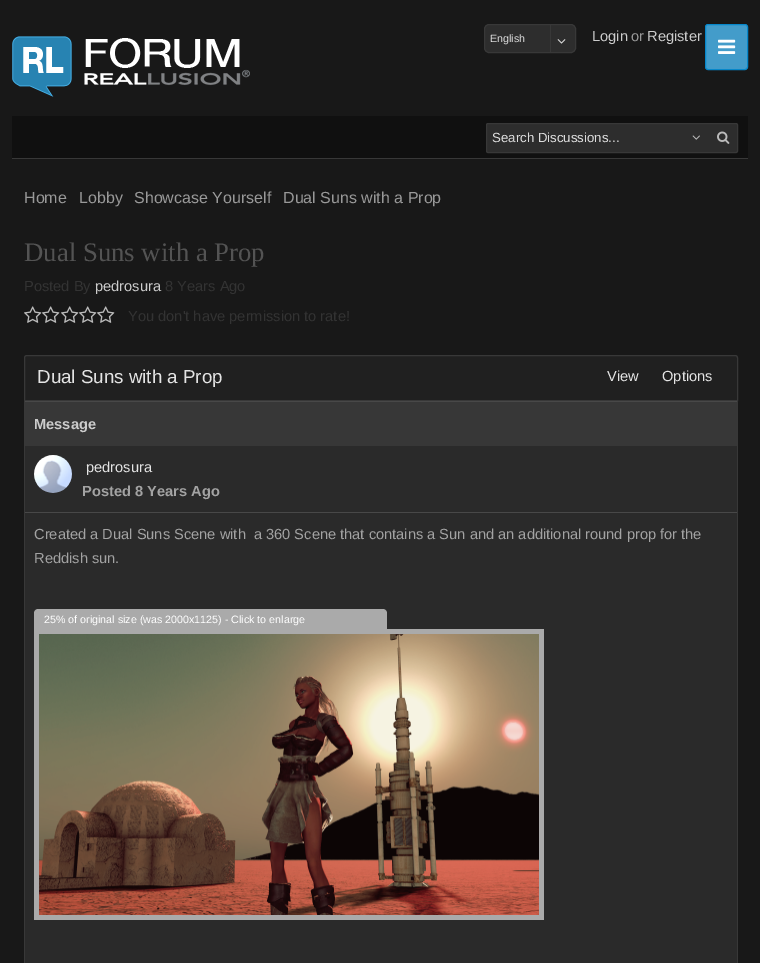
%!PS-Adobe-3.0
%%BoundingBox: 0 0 760 963
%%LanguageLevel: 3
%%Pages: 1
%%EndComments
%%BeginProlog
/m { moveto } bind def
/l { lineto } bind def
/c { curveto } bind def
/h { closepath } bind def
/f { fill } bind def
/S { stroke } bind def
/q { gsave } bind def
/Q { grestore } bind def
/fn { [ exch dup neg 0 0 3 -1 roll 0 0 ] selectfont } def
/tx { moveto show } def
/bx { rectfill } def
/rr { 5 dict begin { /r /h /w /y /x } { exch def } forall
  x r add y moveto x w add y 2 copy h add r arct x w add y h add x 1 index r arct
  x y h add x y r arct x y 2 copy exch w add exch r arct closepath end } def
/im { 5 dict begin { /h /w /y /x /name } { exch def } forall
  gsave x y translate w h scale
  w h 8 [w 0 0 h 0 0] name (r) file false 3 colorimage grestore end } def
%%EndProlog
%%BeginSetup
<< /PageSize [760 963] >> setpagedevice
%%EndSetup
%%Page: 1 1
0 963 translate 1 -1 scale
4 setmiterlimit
0.094 setgray
0 0 760 963 bx
(image0.raw) 12 36 238 61 im
0.176 setgray
484.5 24.5 91 28 4.5 rr q f Q
0.22 setgray
S
/LiberationSans-Regular 10.7 fn
0.867 setgray
(English) 490 42 tx
0.22 setgray
550 25 1 27 bx
(image1.raw) 557 39 9 5 im
/LiberationSans-Regular 14.65 fn
0.8 setgray
(Login) 592 41 tx
0.6 setgray
(or) 631 41 tx
0.8 setgray
(Register) 647 41 tx
0.263 0.612 0.792 setrgbcolor
705.5 24.5 42 45 2.5 rr q f Q
0.024 0.529 0.792 setrgbcolor
S
(image2.raw) 718 39 18 15 im
0.063 setgray
12 116 736 42 bx
0.22 setgray
12 158 736 1 bx
0.176 setgray
486.5 123.5 251 29 1.5 rr q f Q
0.22 setgray
S
/LiberationSans-Regular 13.25 fn
0.867 setgray
(Search Discussions...) 492 142 tx
(image3.raw) 692 135 8 5 im
(image4.raw) 717 131 13 13 im
/LiberationSans-Regular 16 fn
0.6 setgray
(Home) 24 203 tx
(Lobby) 79 203 tx
(Showcase Yourself) 134 203 tx
(Dual Suns with a Prop) 283 203 tx
/LiberationSerif-Regular 26.75 fn
0.325 setgray
(Dual Suns with a Prop) 24 261 tx
/LiberationSans-Regular 14.65 fn
0.2 setgray
(Posted By) 24 291 tx
0.8 setgray
(pedrosura) 95 291 tx
0.2 setgray
(8 Years Ago) 165 291 tx
(image5.raw) 24 306 18 17 im
(image5.raw) 42 306 18 17 im
(image5.raw) 61 306 18 17 im
(image5.raw) 79 306 18 17 im
(image5.raw) 97 306 18 17 im
(You don't have permission to rate!) 128 321 tx
0.125 setgray
27 355.5 m 735 355.5 l 736.5 355.5 737.5 356.5 737.5 358 c 737.5 400.5 l 24.5 400.5 l 24.5 358 l 24.5 356.5 25.5 355.5 27 355.5 c h q f Q
0.22 setgray
S
/LiberationSans-Regular 18.75 fn
0.894 setgray
(Dual Suns with a Prop) 37 383 tx
/LiberationSans-Regular 14.65 fn
(View) 607 381 tx
(Options) 662 381 tx
0.22 setgray
737 401 1 562 bx
24 401 1 562 bx
0.216 setgray
25 402 712 44 bx
0.282 setgray
25 401 712 1 bx
/LiberationSans-Bold 14.65 fn
0.8 setgray
(Message) 34 429 tx
0.165 setgray
25 446 712 66 bx
(image6.raw) 34 455 38 38 im
/LiberationSans-Regular 14.65 fn
0.894 setgray
(pedrosura) 86 472 tx
/LiberationSans-Bold 14.65 fn
0.639 setgray
(Posted 8 Years Ago) 82 496 tx
0.165 setgray
25 513 712 450 bx
0.282 setgray
25 512 712 1 bx
/LiberationSans-Regular 14.65 fn
0.639 setgray
(Created a Dual Suns Scene with  a 360 Scene that contains a Sun and an additional round prop for the) 34 539 tx
(Reddish sun.) 34 563 tx
0.667 setgray
38 609 m 383 609 l 385 609 387 611 387 613 c 387 629 l 34 629 l 34 613 l 34 611 36 609 38 609 c h f
/LiberationSans-Regular 10.7 fn
1 setgray
(25% of original size \(was 2000x1125\) - Click to enlarge) 44 623 tx
0.667 setgray
34 629 510 291 bx
(image7.raw) 39 634 500 281 im
showpage
%%EOF
